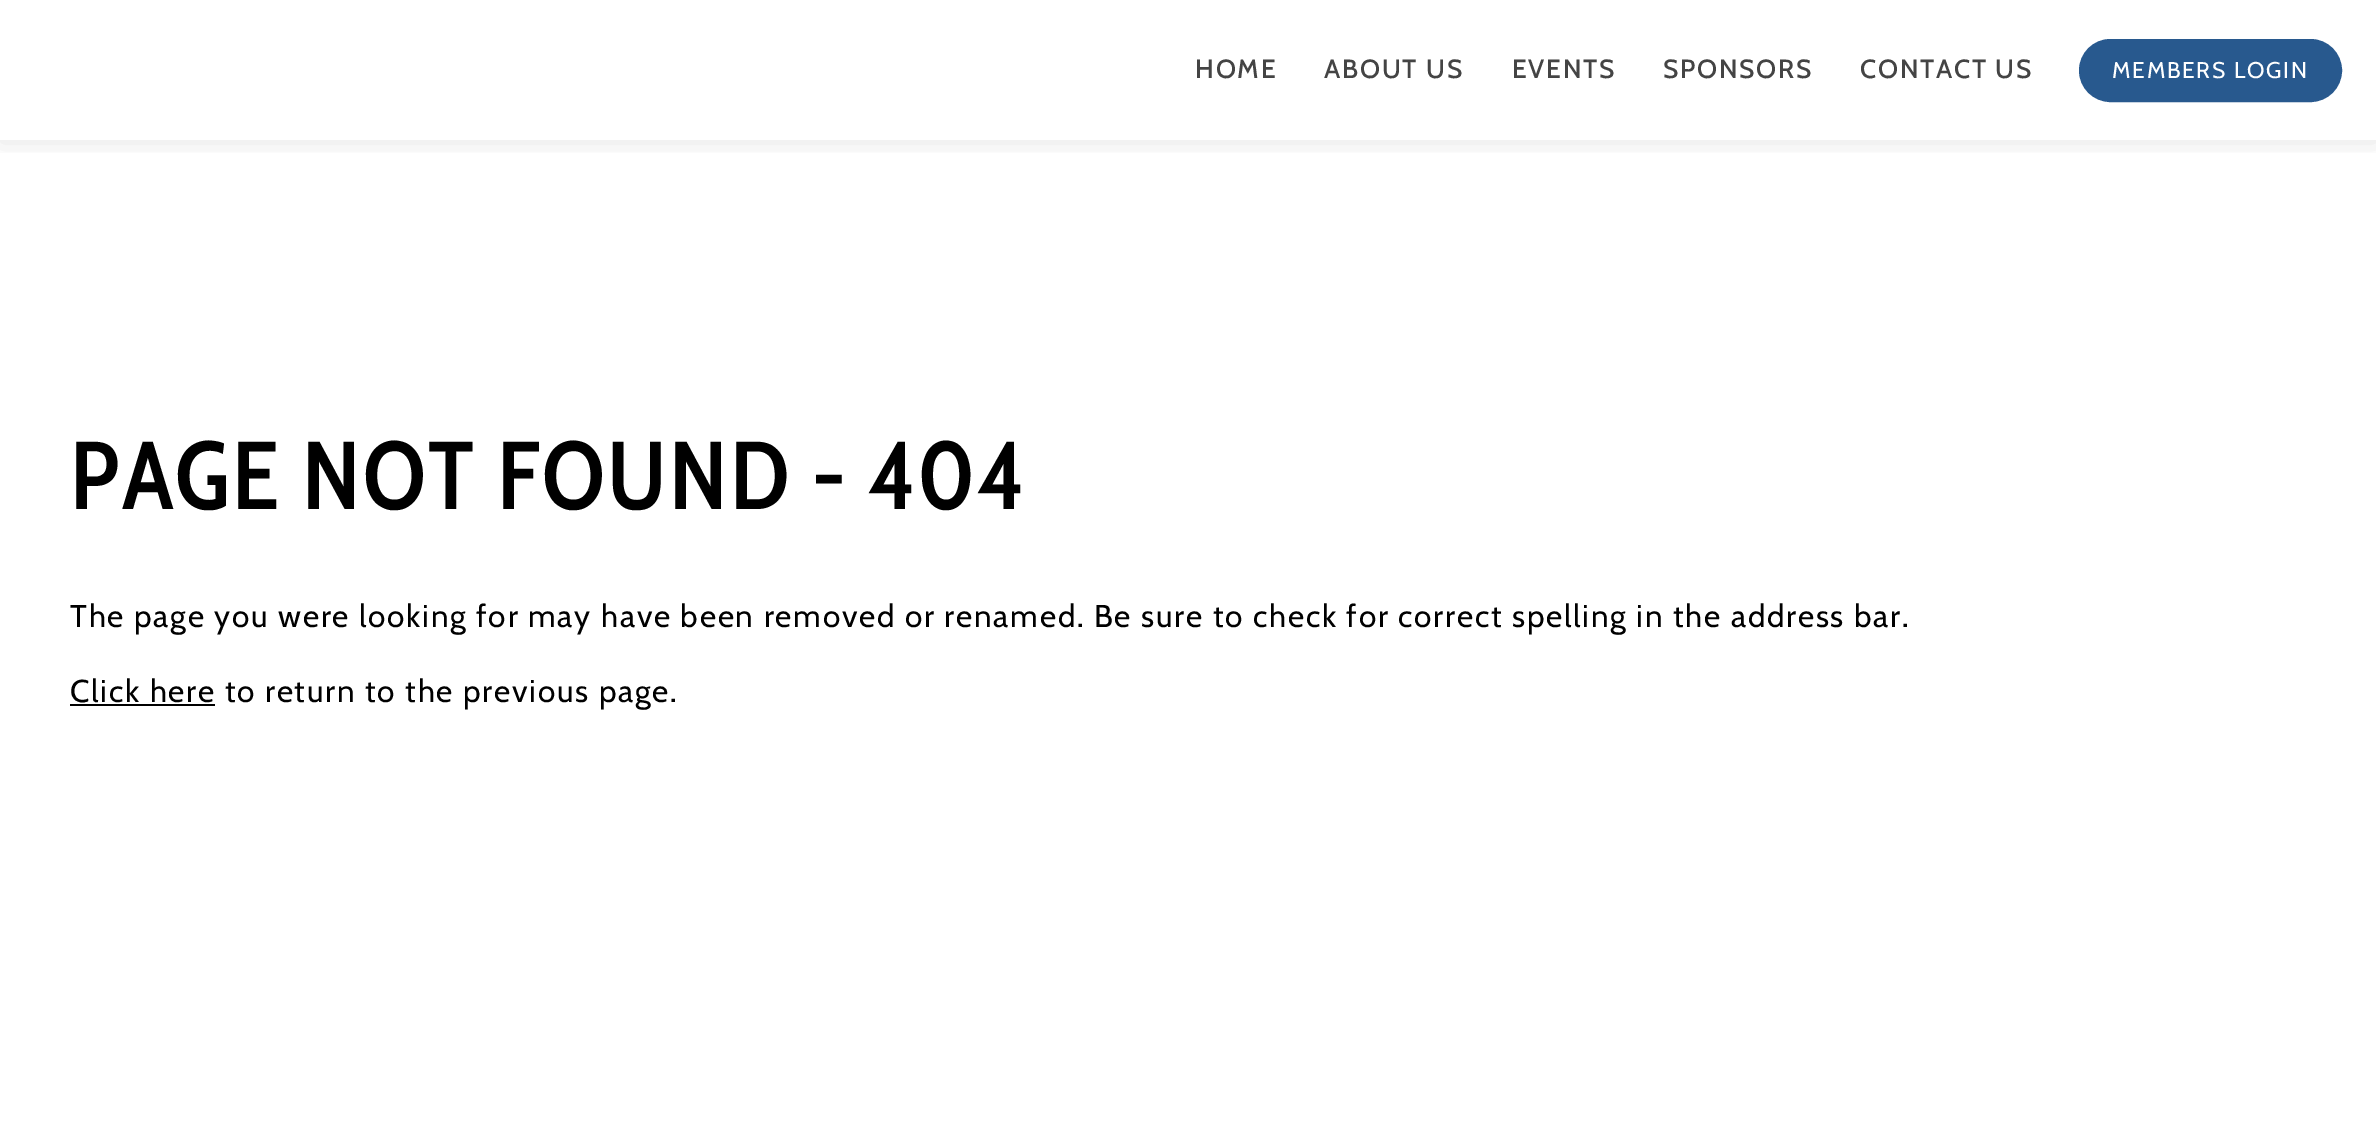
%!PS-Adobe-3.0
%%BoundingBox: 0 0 2376 1135
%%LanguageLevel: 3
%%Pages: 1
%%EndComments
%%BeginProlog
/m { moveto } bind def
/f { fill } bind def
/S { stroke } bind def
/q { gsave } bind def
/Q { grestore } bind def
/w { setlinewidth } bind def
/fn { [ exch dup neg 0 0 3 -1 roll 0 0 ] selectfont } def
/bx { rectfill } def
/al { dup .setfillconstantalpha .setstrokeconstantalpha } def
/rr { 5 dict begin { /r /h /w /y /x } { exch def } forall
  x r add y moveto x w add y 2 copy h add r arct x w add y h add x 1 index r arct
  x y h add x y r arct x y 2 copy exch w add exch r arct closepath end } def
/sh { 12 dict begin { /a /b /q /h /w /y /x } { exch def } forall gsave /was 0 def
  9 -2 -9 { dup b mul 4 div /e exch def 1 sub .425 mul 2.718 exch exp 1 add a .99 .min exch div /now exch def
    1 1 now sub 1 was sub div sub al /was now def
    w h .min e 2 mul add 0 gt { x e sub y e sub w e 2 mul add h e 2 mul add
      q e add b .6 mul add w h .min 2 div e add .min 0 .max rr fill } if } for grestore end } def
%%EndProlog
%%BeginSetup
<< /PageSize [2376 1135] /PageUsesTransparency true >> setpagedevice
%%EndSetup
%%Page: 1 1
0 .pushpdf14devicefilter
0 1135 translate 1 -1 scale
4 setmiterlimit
1 setgray
0 0 2376 1135 bx
q
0 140 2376 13 rectclip
0 setgray
0 2 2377 140 0 13 0.1 sh
Q
/Cabin-Medium 26.25 fn
0.267 setgray
1195 78 m 1.75 0 (HOME) ashow
1324 78 m 1.75 0 (ABOUT US) ashow
1512 78 m 1.75 0 (EVENTS) ashow
1663 78 m 1.75 0 (SPONSORS) ashow
1860 78 m 1.75 0 (CONTACT US) ashow
0.157 0.349 0.557 setrgbcolor
2080 40 261 61 30.5 rr q f Q
2 w
S
/Cabin-Regular 22.75 fn
1 setgray
2112 78 m 1.75 0 (MEMBERS LOGIN) ashow
/CabinCondensed-SemiBold 96.25 fn
0 setgray
70 509 m 2.1 0 (PAGE NOT FOUND - 404) ashow
/Cabin-Regular 31.5 fn
70 627 m 1.75 0 (The page you were looking for may have been removed or renamed. Be sure to check for correct spelling in the address bar.) ashow
70 704 145 2 bx
70 702 m 1.75 0 (Click here to return to the previous page.) ashow
.poppdf14devicefilter showpage
%%EOF
